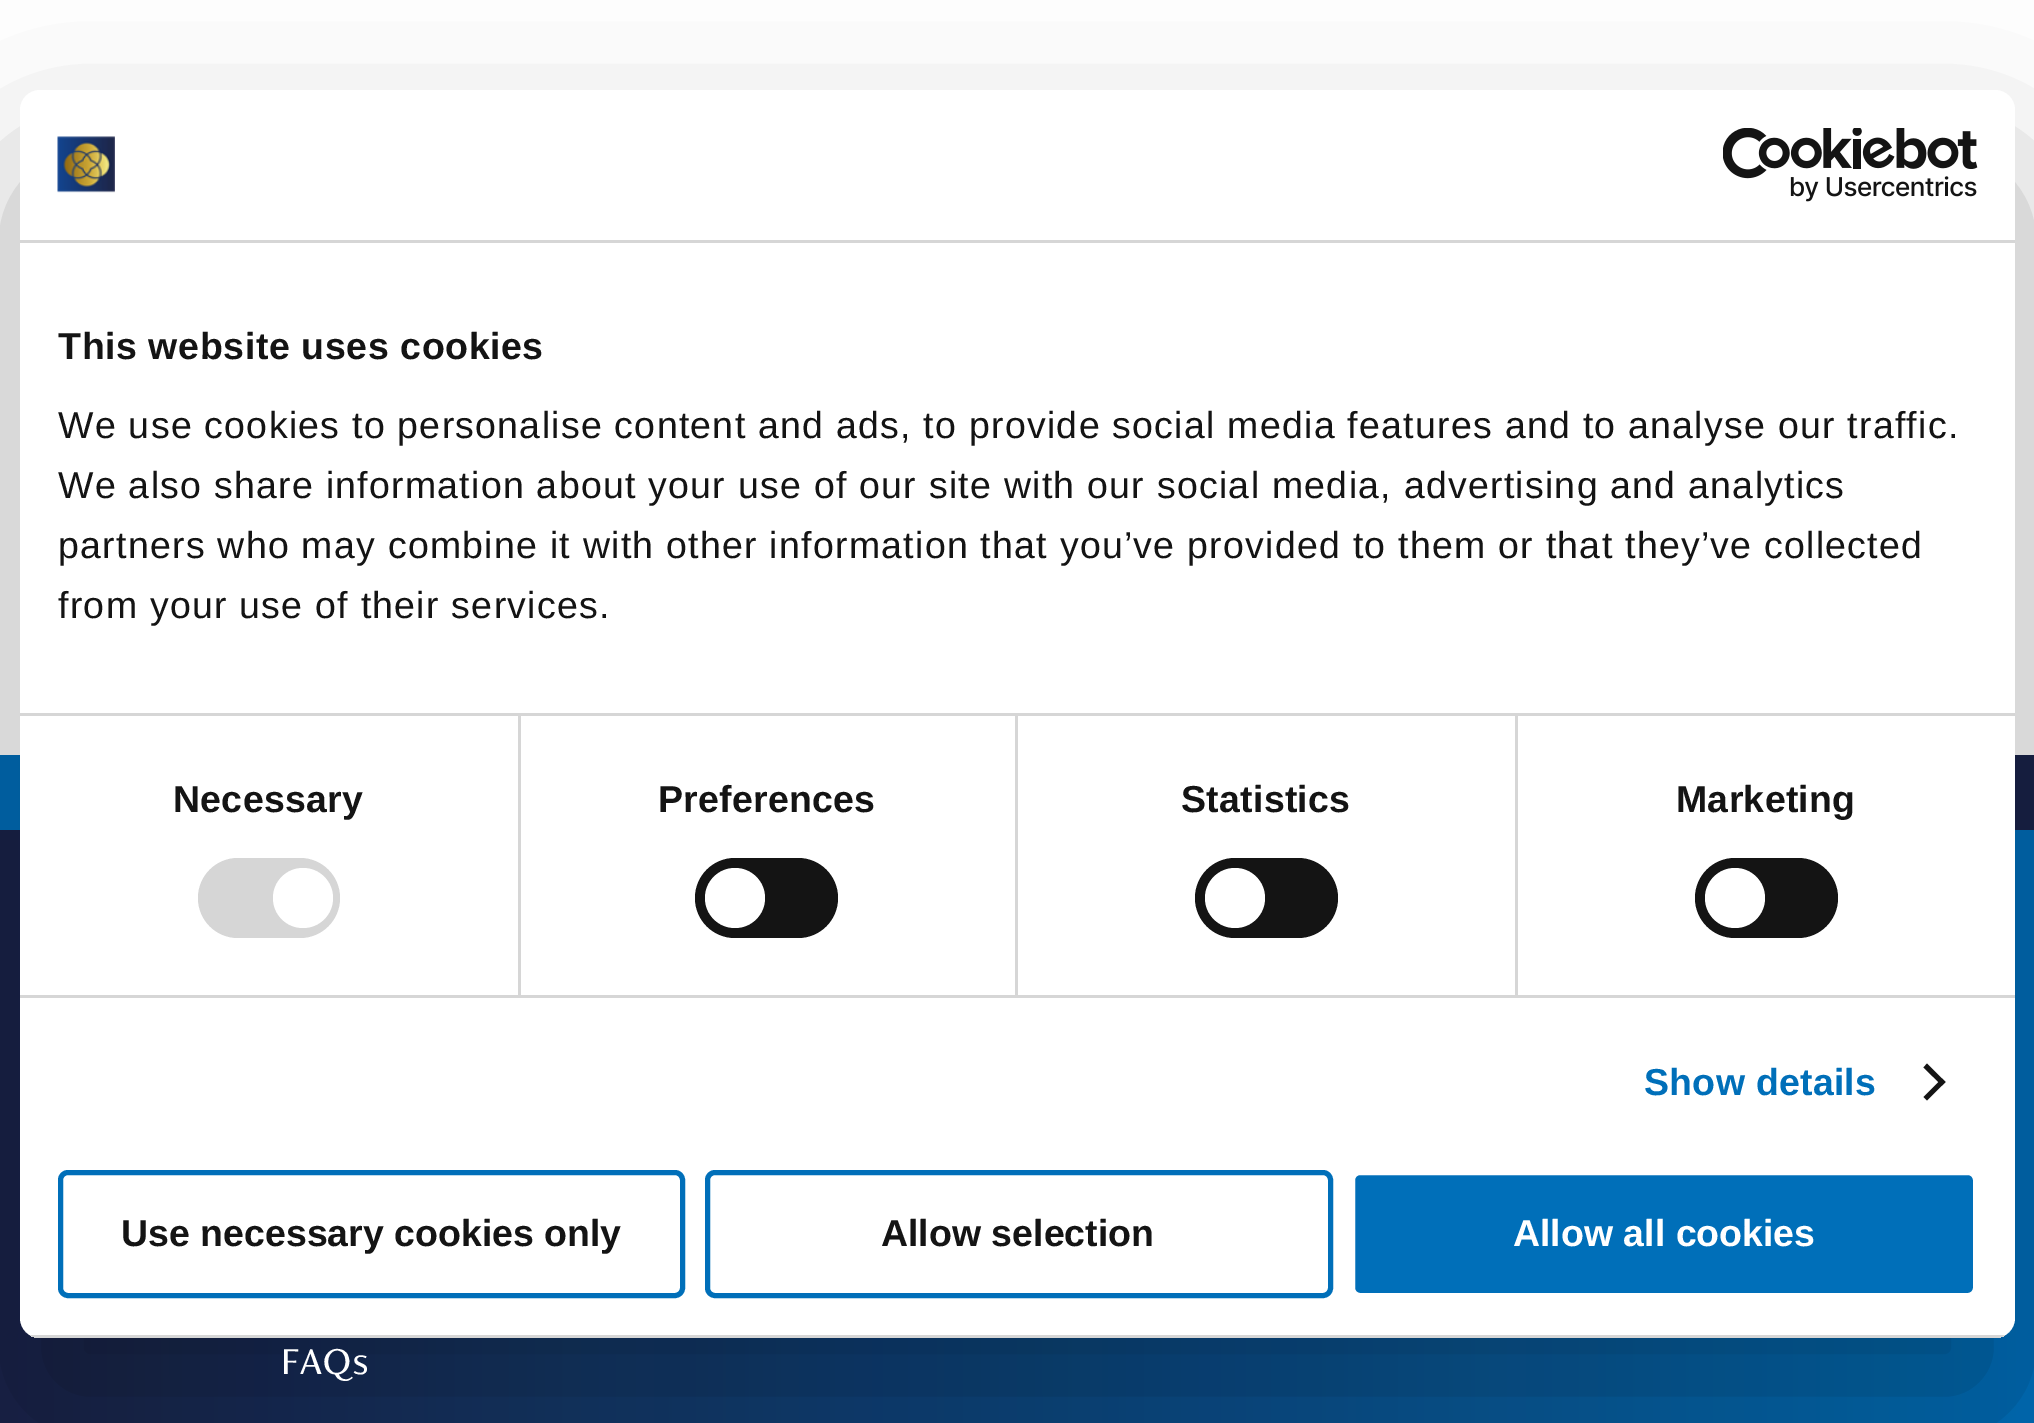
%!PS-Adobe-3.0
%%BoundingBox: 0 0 2034 1423
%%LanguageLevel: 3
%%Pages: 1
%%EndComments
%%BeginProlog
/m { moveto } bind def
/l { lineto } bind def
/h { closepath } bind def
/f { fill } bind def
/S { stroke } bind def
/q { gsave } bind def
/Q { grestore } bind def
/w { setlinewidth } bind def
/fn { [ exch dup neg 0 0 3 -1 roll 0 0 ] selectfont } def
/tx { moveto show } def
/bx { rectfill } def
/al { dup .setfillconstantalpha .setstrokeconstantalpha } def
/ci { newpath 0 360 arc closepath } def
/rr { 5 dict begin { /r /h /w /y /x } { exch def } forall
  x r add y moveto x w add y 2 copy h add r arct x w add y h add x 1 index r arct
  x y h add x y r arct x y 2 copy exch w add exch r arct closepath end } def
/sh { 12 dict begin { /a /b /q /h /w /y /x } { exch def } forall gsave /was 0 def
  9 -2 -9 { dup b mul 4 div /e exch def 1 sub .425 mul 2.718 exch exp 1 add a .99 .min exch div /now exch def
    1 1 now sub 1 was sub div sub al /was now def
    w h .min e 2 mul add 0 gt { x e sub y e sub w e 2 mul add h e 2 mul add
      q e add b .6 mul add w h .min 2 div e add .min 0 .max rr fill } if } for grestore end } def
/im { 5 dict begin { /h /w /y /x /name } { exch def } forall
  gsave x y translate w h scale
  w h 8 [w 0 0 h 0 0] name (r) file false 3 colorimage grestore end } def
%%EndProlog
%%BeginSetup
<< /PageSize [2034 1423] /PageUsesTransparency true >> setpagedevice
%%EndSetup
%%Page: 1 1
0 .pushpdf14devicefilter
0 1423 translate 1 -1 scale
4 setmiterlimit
1 setgray
0 0 2034 1423 bx
q 0 830 m 2034 830 l 2034 1423 l 0 1423 l h clip newpath
<< /ShadingType 2 /ColorSpace /DeviceRGB /Coords [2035 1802 0 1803] /Extend [true true] /Function << /FunctionType 2 /Domain [0 1] /C0 [0 0.435 0.725] /C1 [0.102 0.133 0.286] /N 1 >> >> shfill Q
q 0 755 m 2034 755 l 2034 830 l 0 830 l h clip newpath
<< /ShadingType 2 /ColorSpace /DeviceRGB /Coords [0 793 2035 793] /Extend [true true] /Function << /FunctionType 2 /Domain [0 1] /C0 [0 0.435 0.725] /C1 [0.102 0.133 0.286] /N 1 >> >> shfill Q
0 setgray
20 170 1995 1248 20 85 0.3 sh
1 setgray
20 90 1995 1248 20 rr f
0.839 setgray
20 240 1995 3 bx
(image0.raw) 57 136 58 57 im
(image1.raw) 1723 128 255 74 im
518 715 3 280 bx
1015 715 3 280 bx
1515 715 3 280 bx
20 713 1995 3 bx
/LiberationSans-Bold 37.5 fn
0.078 setgray
58 359 m 0.6 0 (This website uses cookies) ashow
/LiberationSans-Regular 37.5 fn
58 438 m 1.25 0 (We use cookies to personalise content and ads, to provide social media features and to analyse our traffic.) ashow
58 498 m 1.25 0 (We also share information about your use of our site with our social media, advertising and analytics) ashow
58 558 m 1.25 0 (partners who may combine it with other information that you’ve provided to them or that they’ve collected) ashow
58 618 m 1.25 0 (from your use of their services.) ashow
0.839 setgray
20 995 1995 3 bx
/LiberationSans-Bold 37.5 fn
0.078 setgray
173 812 m 0.25 0 (Necessary) ashow
0.839 setgray
198 858 142 80 40 rr f
1 setgray
303 898 30 ci f
0.078 setgray
658 812 m 0.25 0 (Preferences) ashow
695 858 143 80 40 rr f
1 setgray
735 898 30 ci f
0.078 setgray
1181 812 m 0.25 0 (Statistics) ashow
1195 858 143 80 40 rr f
1 setgray
1235 898 30 ci f
0.078 setgray
1676 812 m 0.25 0 (Marketing) ashow
1695 858 143 80 40 rr f
1 setgray
1735 898 30 ci f
0 0.435 0.725 setrgbcolor
1644 1095 m 0.25 0 (Show details) ashow
0.078 setgray
1927 1063.5 m 1945.5 1082 l 1942 1085.5 l 1923.5 1067.5 l h f
1942 1078.5 m 1945.5 1082 l 1927 1100.5 l 1923.5 1097 l h f
q
20 90 1995 1248 20 rr clip newpath
0.839 setgray
29 1335 1977 3 bx
Q
0 0.435 0.725 setrgbcolor
5 w
60.5 1172.5 622 123 7.5 rr S
0.078 setgray
(Use necessary cookies only) 121 1246 tx
0 0.435 0.725 setrgbcolor
707.5 1172.5 623 123 7.5 rr S
0.078 setgray
(Allow selection) 881 1246 tx
0 0.435 0.725 setrgbcolor
1352.5 1172.5 623 123 7.5 rr q f Q
1 setgray
S
(Allow all cookies) 1513 1246 tx
/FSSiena-Regular 40 fn
(FAQs) 280 1374 tx
.poppdf14devicefilter showpage
%%EOF
